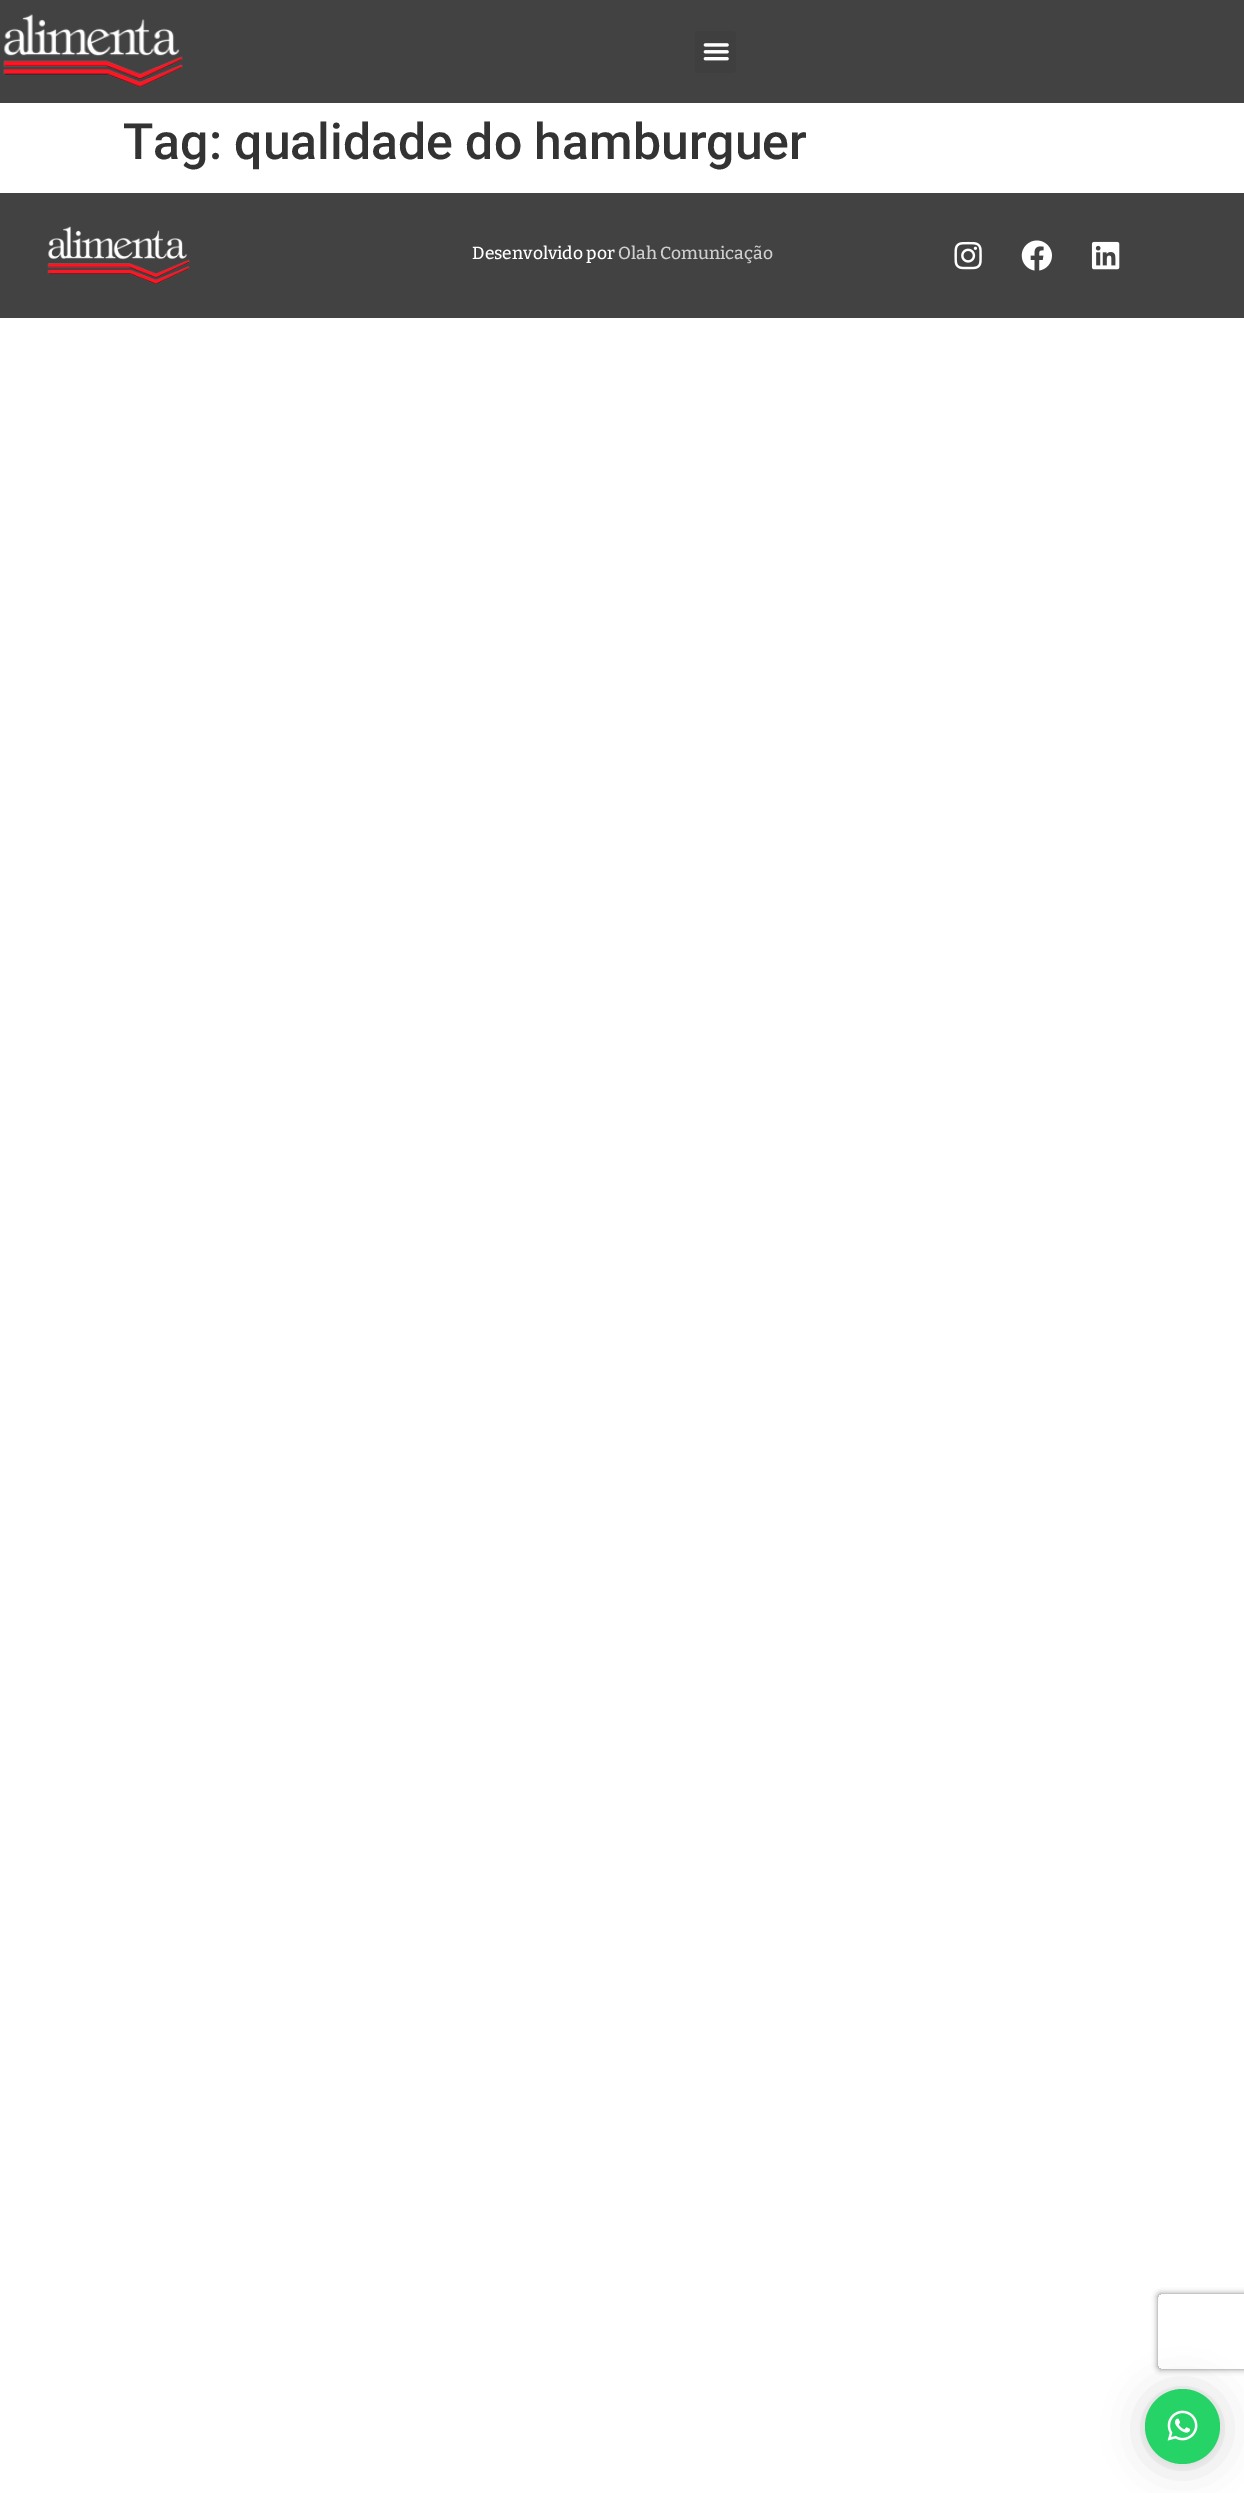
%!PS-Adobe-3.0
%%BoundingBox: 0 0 1244 2493
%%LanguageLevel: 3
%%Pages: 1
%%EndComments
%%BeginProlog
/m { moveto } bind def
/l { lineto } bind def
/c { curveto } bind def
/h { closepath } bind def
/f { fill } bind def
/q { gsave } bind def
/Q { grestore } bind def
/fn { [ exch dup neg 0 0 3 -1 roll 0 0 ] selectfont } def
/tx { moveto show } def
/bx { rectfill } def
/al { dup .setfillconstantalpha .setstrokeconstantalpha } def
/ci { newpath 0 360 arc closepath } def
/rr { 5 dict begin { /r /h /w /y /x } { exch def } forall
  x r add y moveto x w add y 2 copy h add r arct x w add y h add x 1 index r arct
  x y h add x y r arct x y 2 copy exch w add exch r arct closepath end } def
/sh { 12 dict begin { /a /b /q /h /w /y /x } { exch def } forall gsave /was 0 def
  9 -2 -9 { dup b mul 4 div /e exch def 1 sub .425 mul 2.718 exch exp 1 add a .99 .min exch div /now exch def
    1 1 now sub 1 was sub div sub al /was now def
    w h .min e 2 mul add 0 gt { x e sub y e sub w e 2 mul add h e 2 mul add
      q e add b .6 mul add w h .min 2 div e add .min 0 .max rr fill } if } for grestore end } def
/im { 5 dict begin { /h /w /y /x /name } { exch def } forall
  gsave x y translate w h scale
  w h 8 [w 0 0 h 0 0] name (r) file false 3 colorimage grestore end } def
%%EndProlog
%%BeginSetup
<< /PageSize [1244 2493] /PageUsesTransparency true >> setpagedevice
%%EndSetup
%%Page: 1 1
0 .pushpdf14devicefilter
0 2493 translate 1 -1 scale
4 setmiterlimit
1 setgray
0 0 1244 2493 bx
0.259 setgray
0 0 1244 103 bx
(image0.raw) 3 14 180 74 im
0.247 setgray
695 31 41 42 4 rr f
(image1.raw) 703 43 26 18 im
/Roboto-Medium 50 fn
0.2 setgray
(Tag: qualidade do hamburguer) 123 159 tx
0.259 setgray
0 193 1244 125 bx
(image2.raw) 47 226 143 58 im
/Bitter-Medium 17.5 fn
1 setgray
(Desenvolvido por) 472 259 tx
0.808 setgray
(Olah Comunicação) 618 259 tx
(image3.raw) 954 241 28 29 im
(image4.raw) 1021 240 31 31 im
(image5.raw) 1091 241 29 29 im
q
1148 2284 m 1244 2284 l 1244 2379 l 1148 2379 l h 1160.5 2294 m 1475.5 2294 l 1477 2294 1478 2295 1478 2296.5 c 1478 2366.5 l 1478 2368 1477 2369 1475.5 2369 c 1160.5 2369 l 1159 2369 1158 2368 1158 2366.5 c 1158 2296.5 l 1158 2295 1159 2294 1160.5 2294 c h eoclip newpath
0.502 setgray
1158 2294 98 75 2.5 3 1 sh
Q
0 setgray
1145 2391 75 75 37.5 20 0.16 sh
1145 2390 75 75 37.5 4 0.06 sh
0.145 0.827 0.4 setrgbcolor
1182.5 2426.5 37.5 ci f
(image6.raw) 1167 2410 31 31 im
.poppdf14devicefilter showpage
%%EOF
